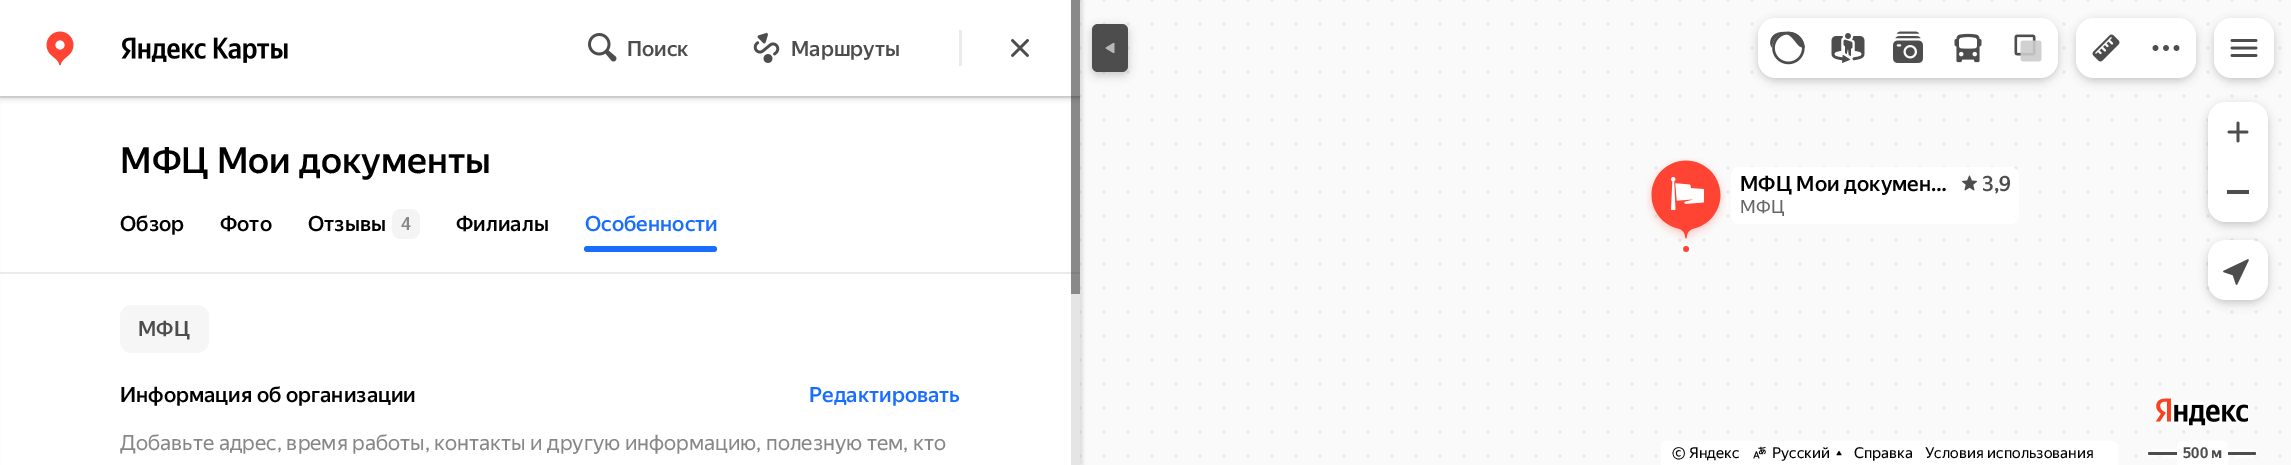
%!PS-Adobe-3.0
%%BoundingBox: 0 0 2291 465
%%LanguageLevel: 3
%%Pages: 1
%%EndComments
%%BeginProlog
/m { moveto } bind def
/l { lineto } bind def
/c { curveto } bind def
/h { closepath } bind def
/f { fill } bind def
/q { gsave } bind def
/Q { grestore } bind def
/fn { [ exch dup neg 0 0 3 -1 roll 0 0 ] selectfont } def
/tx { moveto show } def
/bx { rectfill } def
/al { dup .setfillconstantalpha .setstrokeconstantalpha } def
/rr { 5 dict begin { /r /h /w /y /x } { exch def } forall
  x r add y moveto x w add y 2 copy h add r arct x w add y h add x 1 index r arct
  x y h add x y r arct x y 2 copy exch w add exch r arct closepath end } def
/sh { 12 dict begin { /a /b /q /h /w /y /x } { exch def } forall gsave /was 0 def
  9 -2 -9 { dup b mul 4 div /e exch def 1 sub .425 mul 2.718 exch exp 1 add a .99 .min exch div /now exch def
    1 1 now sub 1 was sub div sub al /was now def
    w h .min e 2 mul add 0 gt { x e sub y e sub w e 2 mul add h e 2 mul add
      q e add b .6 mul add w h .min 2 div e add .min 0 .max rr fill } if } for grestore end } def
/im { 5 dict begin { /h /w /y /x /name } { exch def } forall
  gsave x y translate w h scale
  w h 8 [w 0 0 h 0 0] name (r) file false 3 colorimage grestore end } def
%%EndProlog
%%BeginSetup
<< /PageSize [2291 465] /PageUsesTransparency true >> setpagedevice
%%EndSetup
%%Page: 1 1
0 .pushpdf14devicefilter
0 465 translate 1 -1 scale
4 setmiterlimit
1 setgray
0 0 2291 465 bx
(image0.raw) 1080 0 1211 465 im
0 setgray
3 0 1080 465 0 1.5 0.1 sh
1 setgray
1 98 1079 367 bx
0.922 setgray
0 96 1080 2 bx
q
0 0 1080 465 rectclip
0 setgray
0 92 1080 6 0 3 0.2 sh
Q
0 setgray
1092 27 36 48 6 4.5 0.2 sh
1 setgray
0 0 1080 96 bx
(image1.raw) 46 31 28 35 im
(image2.raw) 121 37 167 26 im
(image3.raw) 588 33 29 29 im
/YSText-Medium 21 fn
0.302 setgray
(Поиск) 627 56 tx
(image4.raw) 753 33 27 30 im
(Маршруты) 791 56 tx
0.922 setgray
959 30 3 36 bx
(image5.raw) 1011 39 18 18 im
/YSText-Medium 36 fn
0 setgray
(МФЦ Мои документы) 120 173 tx
/YSText-Medium 21 fn
(Обзор) 120 231 tx
(Фото) 220 231 tx
(Отзывы) 308 231 tx
0.957 setgray
392 209 28 30 9 rr f
/YSText-Medium 18 fn
0.529 setgray
(4) 401 230 tx
/YSText-Medium 21 fn
0 setgray
(Филиалы) 456 231 tx
0.098 0.427 1 setrgbcolor
(Особенности) 585 231 tx
584 246 133 6 3 rr f
0.922 setgray
0 272 1080 2 bx
0.965 setgray
120 305 89 48 12 rr f
0.302 setgray
(МФЦ) 138 336 tx
0 setgray
(Информация об организации) 120 402 tx
0.098 0.427 1 setrgbcolor
(Редактировать) 809 402 tx
/YSText-Regular 21 fn
0.529 setgray
(Добавьте адрес, время работы, контакты и другую информацию, полезную тем, кто) 120 450 tx
0.1 al
0 setgray
1071 0 9 465 bx
0.4 al
1071 0 9 294 bx
1 al
0.302 setgray
1092 24 36 48 6 rr f
(image6.raw) 1105 42 10 12 im
0 setgray
1758 21 300 60 18 4.5 0.2 sh
1 setgray
1776 18 m 1818 18 l 1818 78 l 1776 78 l 1766 78 1758 70 1758 60 c 1758 36 l 1758 26 1766 18 1776 18 c h f
(image7.raw) 1770 31 35 34 im
1818 18 180 60 bx
(image8.raw) 1831 33 34 30 im
1998 18 m 2040 18 l 2050 18 2058 26 2058 36 c 2058 60 l 2058 70 2050 78 2040 78 c 1998 78 l h f
(image9.raw) 2014 34 28 28 im
(image10.raw) 1893 31 30 32 im
(image11.raw) 1954 33 28 30 im
0 setgray
2076 21 120 60 18 4.5 0.2 sh
1 setgray
2094 18 m 2136 18 l 2136 78 l 2094 78 l 2084 78 2076 70 2076 60 c 2076 36 l 2076 26 2084 18 2094 18 c h f
(image12.raw) 2092 34 28 28 im
2136 18 m 2178 18 l 2188 18 2196 26 2196 36 c 2196 60 l 2196 70 2188 78 2178 78 c 2136 78 l h f
(image13.raw) 2152 45 28 6 im
0 setgray
2214 21 60 60 18 4.5 0.2 sh
1 setgray
2214 18 60 60 18 rr f
(image14.raw) 2230 39 28 18 im
0 setgray
2208 105 60 120 18 4.5 0.2 sh
1 setgray
2226 102 m 2250 102 l 2260 102 2268 110 2268 120 c 2268 162 l 2208 162 l 2208 120 l 2208 110 2216 102 2226 102 c h f
(image15.raw) 2227 121 22 22 im
2208 162 m 2268 162 l 2268 204 l 2268 214 2260 222 2250 222 c 2226 222 l 2216 222 2208 214 2208 204 c h f
0.302 setgray
2227 190 22 4 bx
0 setgray
2208 243 60 60 18 4.5 0.2 sh
1 setgray
2208 240 60 60 18 rr f
(image16.raw) 2223 259 26 26 im
(image17.raw) 2155 398 93 28 im
1667 441 m 2112 441 l 2115.5 441 2118 443.5 2118 447 c 2118 465 l 1661 465 l 1661 447 l 1661 443.5 1663.5 441 1667 441 c h f
/YSText-Regular 15 fn
0 setgray
(© Яндекс) 1672 458 tx
(image18.raw) 1753 446 13 13 im
(Русский) 1772 458 tx
(image19.raw) 1836 450 6 6 im
(Справка) 1854 458 tx
(Условия использования) 1925 458 tx
0.6 al
1 setgray
2145 449 114 9 4.5 rr f
1 al
0.302 setgray
2148 452 108 3 1.5 rr f
1 setgray
2183 441 m 2222 441 l 2225.5 441 2228 443.5 2228 447 c 2228 465 l 2177 465 l 2177 447 l 2177 443.5 2179.5 441 2183 441 c h f
/YSText-Bold 15 fn
0.302 setgray
(500 м) 2183 458 tx
(image20.raw) 1646 158 80 97 im
(image21.raw) 1671 177 33 33 im
0.9 al
1 setgray
1731 167 288 57 9 rr f
/YSText-Medium 21 fn
1 al
0 setgray
(МФЦ Мои докумен…) 1740 191 tx
(image22.raw) 1962 175 15 16 im
0.302 setgray
(3,9) 1982 191 tx
/YSText-Regular 18 fn
0.4 setgray
(МФЦ) 1740 213 tx
.poppdf14devicefilter showpage
%%EOF
